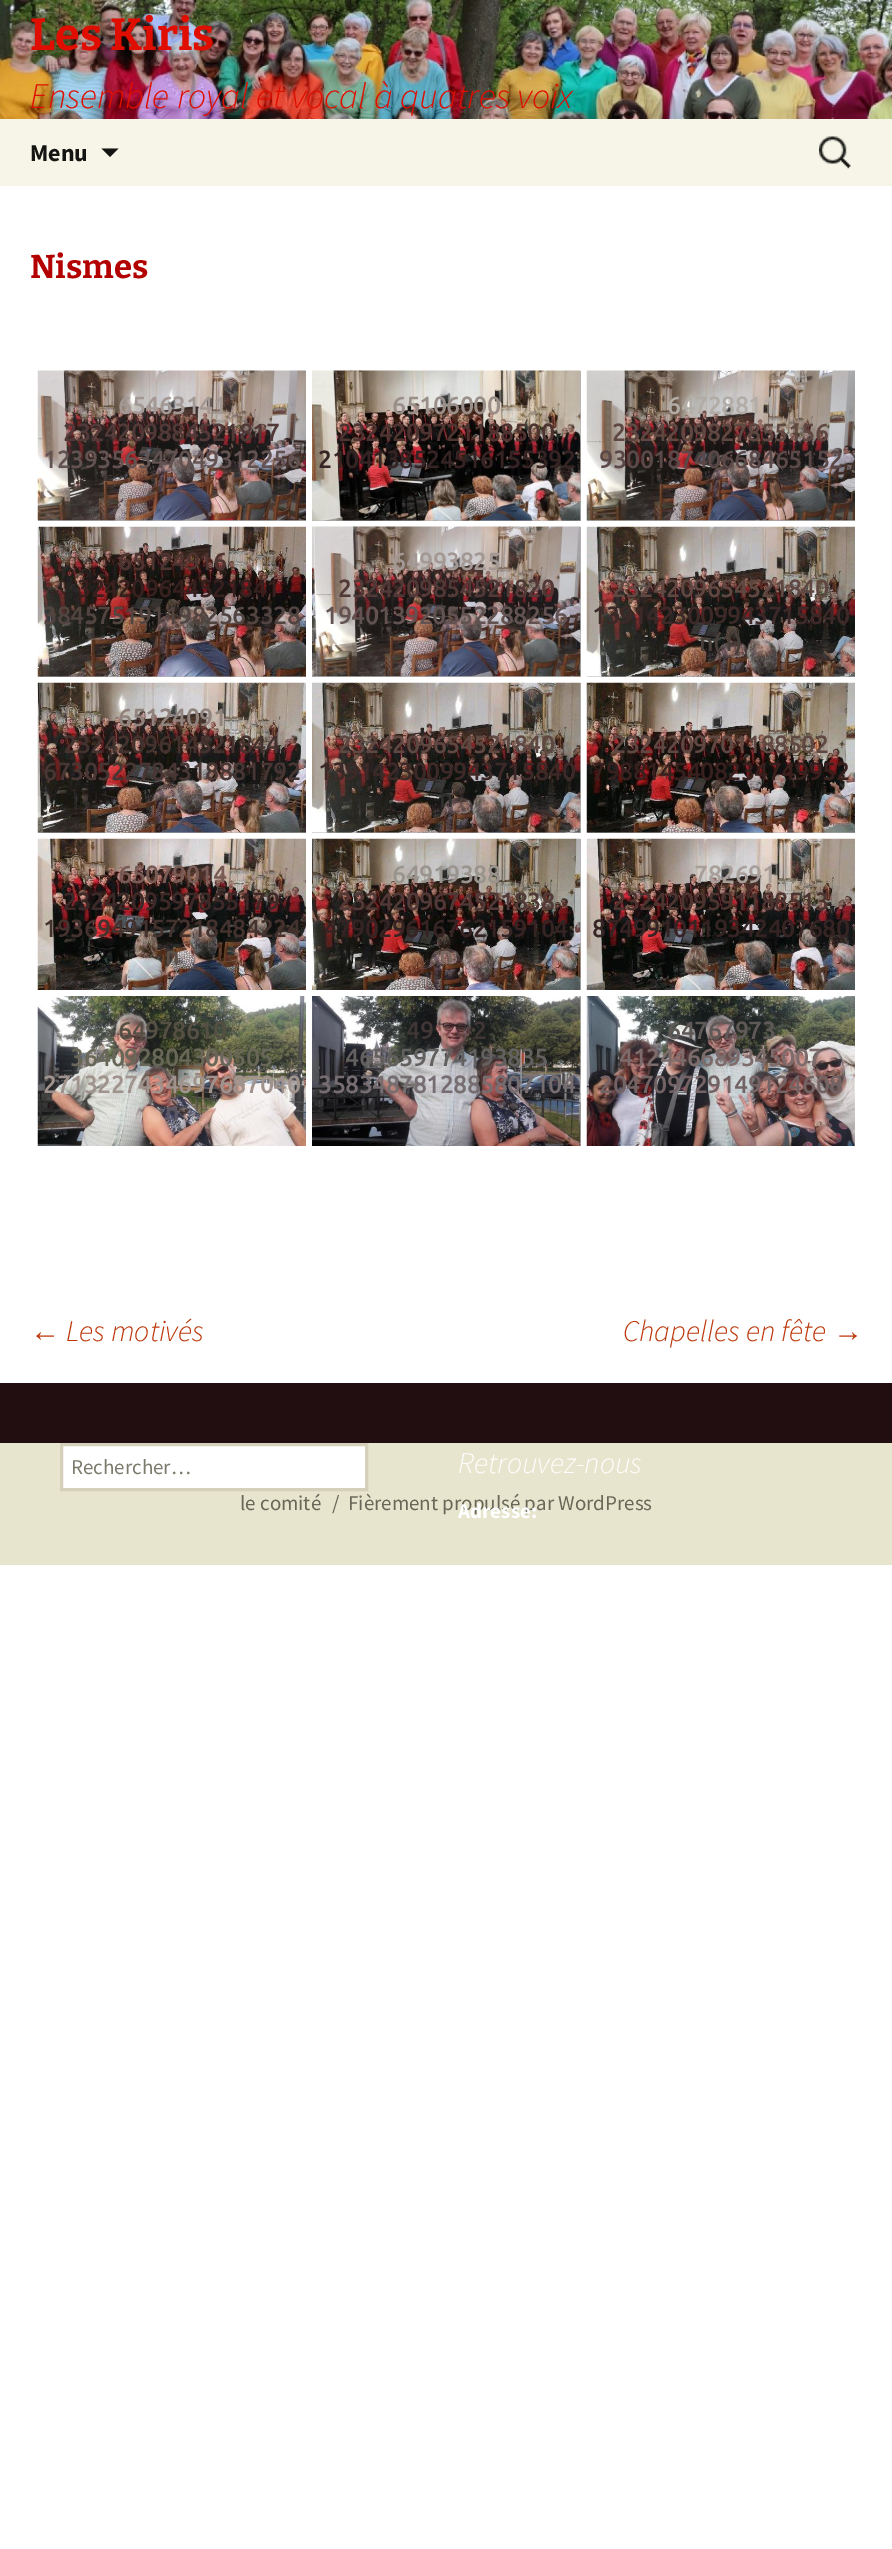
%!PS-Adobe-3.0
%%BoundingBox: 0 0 892 2549
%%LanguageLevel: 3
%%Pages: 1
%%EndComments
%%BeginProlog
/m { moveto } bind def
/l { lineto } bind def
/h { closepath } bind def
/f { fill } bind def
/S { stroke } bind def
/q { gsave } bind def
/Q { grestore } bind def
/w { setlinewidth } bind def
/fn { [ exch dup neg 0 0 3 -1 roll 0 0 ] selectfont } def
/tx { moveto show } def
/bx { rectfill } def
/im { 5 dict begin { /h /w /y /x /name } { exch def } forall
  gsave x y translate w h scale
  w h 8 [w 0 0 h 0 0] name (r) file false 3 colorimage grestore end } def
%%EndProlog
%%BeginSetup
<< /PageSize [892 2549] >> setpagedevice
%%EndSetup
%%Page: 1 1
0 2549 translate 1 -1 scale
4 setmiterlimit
1 setgray
0 0 892 2549 bx
(image0.raw) 0 0 892 119 im
/Bitter-Bold 45 fn
0.878 0.055 0 setrgbcolor
(Les Kiris) 30 50 tx
/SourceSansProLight-LightItalic 36 fn
(Ensemble royal et vocal à quatres voix) 30 108 tx
0.969 0.961 0.906 setrgbcolor
0 119 892 67 bx
/SourceSansPro-Bold 24 fn
0.078 0.078 0.071 setrgbcolor
(Menu) 30 161 tx
101.5 148.5 m 110 157 l 118.5 148.5 l h f
(image1.raw) 819 136 32 33 im
/Bitter-Bold 33 fn
0.702 0 0 setrgbcolor
(Nismes) 30 278 tx
0.702 setgray
38 520 268 1 bx
(image2.raw) 37 370 269 151 im
/Ubuntu-Bold 24 fn
0.639 0.596 0.58 setrgbcolor
(65463141) 118 414 tx
0.318 0.224 0.22 setrgbcolor
(2324209884521817) 63 441 tx
0.384 0.322 0.318 setrgbcolor
(1239356347049312256) 43 468 tx
0.702 setgray
312 371 269 150 bx
(image3.raw) 312 370 269 151 im
0.604 0.561 0.533 setrgbcolor
(65106000) 392 414 tx
0.306 0.204 0.188 setrgbcolor
(2324209721188500) 338 441 tx
0.212 0.141 0.141 setrgbcolor
(2104138524516155392) 318 468 tx
0.702 setgray
587 520 268 1 bx
(image4.raw) 586 370 269 151 im
0.698 0.675 0.655 setrgbcolor
(64728811) 667 414 tx
0.373 0.278 0.259 setrgbcolor
(2324209827855156) 612 441 tx
0.353 0.286 0.282 setrgbcolor
(930018740668465152) 599 468 tx
0.702 setgray
38 676 268 1 bx
(image5.raw) 37 526 269 151 im
0.306 0.204 0.188 setrgbcolor
(65124916) 118 570 tx
0.22 0.125 0.118 setrgbcolor
(324209644521841) 77 597 tx
0.322 0.267 0.251 setrgbcolor
(3845751911982563328) 43 624 tx
0.702 setgray
312 527 269 150 bx
(image6.raw) 312 526 269 151 im
0.639 0.596 0.58 setrgbcolor
(64993825) 392 570 tx
0.318 0.224 0.22 setrgbcolor
(2324209854521820) 338 597 tx
0.384 0.322 0.318 setrgbcolor
(194013920552288256) 324 624 tx
0.702 setgray
587 676 268 1 bx
(image7.raw) 586 526 269 151 im
0.373 0.278 0.259 setrgbcolor
(2324209654521840) 612 597 tx
0.239 0.165 0.157 setrgbcolor
(1391423009943715840) 592 624 tx
0.29 0.251 0.231 setrgbcolor
(n\(1\)) 699 651 tx
0.702 setgray
38 832 268 1 bx
(image8.raw) 37 682 269 151 im
0.565 0.51 0.486 setrgbcolor
(65124091) 118 726 tx
0.267 0.196 0.18 setrgbcolor
(2324209614521844) 63 753 tx
0.278 0.212 0.204 setrgbcolor
(6730522784318881792) 43 780 tx
0.702 setgray
312 683 269 150 bx
(image9.raw) 312 682 269 151 im
0.373 0.278 0.259 setrgbcolor
(2324209654521840) 338 753 tx
0.239 0.165 0.157 setrgbcolor
(1391423009943715840) 318 780 tx
0.192 0.188 0.18 setrgbcolor
(n) 439 807 tx
0.702 setgray
587 832 268 1 bx
(image10.raw) 586 682 269 151 im
0.373 0.278 0.259 setrgbcolor
(2324209701188502) 612 753 tx
0.22 0.125 0.118 setrgbcolor
(7988145408234749952) 592 780 tx
0.49 0.416 0.384 setrgbcolor
(n) 714 807 tx
(image11.raw) 37 838 269 152 im
0.467 0.357 0.329 setrgbcolor
(65079014) 118 883 tx
0.239 0.165 0.157 setrgbcolor
(2324209597855179) 63 910 tx
0.267 0.196 0.18 setrgbcolor
(1936949157218484224) 43 937 tx
0.365 0.318 0.29 setrgbcolor
(n) 165 964 tx
0.702 setgray
580 839 1 151 bx
(image12.raw) 312 838 269 152 im
0.604 0.58 0.557 setrgbcolor
(64919388) 392 883 tx
0.318 0.224 0.22 setrgbcolor
(2324209674521838) 338 910 tx
0.212 0.141 0.141 setrgbcolor
(479029616762159104) 324 937 tx
0.49 0.416 0.384 setrgbcolor
(n) 439 964 tx
(image13.raw) 586 838 269 152 im
0.659 0.624 0.604 setrgbcolor
(782691) 694 883 tx
0.306 0.204 0.188 setrgbcolor
(2324209591188513) 612 910 tx
0.212 0.141 0.141 setrgbcolor
(8749910119342407680) 592 937 tx
(image14.raw) 37 996 269 150 im
0.337 0.31 0.267 setrgbcolor
(64978610) 118 1039 tx
0.408 0.404 0.345 setrgbcolor
(364092804300505) 70 1066 tx
0.627 0.573 0.549 setrgbcolor
(2713227434697687040) 43 1093 tx
0.369 0.345 0.4 setrgbcolor
(n) 165 1120 tx
0.702 setgray
580 996 1 150 bx
(image15.raw) 312 996 269 150 im
0.247 0.212 0.208 setrgbcolor
(49) 406 1039 tx
(2) 473 1039 tx
0.388 0.38 0.373 setrgbcolor
(465659774193835) 345 1066 tx
0.463 0.427 0.443 setrgbcolor
(3583487812885807104) 318 1093 tx
(image16.raw) 586 996 269 150 im
0.373 0.353 0.345 setrgbcolor
(64767973) 667 1039 tx
0.49 0.424 0.42 setrgbcolor
(412446689345007) 619 1066 tx
0.455 0.388 0.392 setrgbcolor
(204709729149124608) 599 1093 tx
/LiberationSans-Italic 30 fn
0.737 0.212 0.039 setrgbcolor
(←) 30 1341 tx
/SourceSansProLight-LightItalic 30 fn
(Les motivés) 66 1341 tx
(Chapelles en fête) 623 1341 tx
/LiberationSans-Italic 30 fn
(→) 833 1341 tx
0.91 0.898 0.808 setrgbcolor
0 1443 892 122 bx
0.133 0.055 0.063 setrgbcolor
0 1383 892 60 bx
1 setgray
61.5 1444.5 m 366.5 1444.5 l 366.5 1489.5 l 61.5 1489.5 l h q f Q
0.831 0.816 0.729 setrgbcolor
3 w
S
/SourceSansPro-Regular 21 fn
0.49 0.482 0.427 setrgbcolor
(Rechercher…) 71 1474 tx
/SourceSansProLight-LightItalic 30 fn
1 setgray
(Retrouvez-nous) 458 1473 tx
/SourceSansPro-Regular 21 fn
0.408 0.404 0.345 setrgbcolor
(Fièrement propulsé par WordPress) 348 1510 tx
/SourceSansPro-Bold 21 fn
1 setgray
(Adresse:) 458 1518 tx
/SourceSansPro-Regular 21 fn
0.408 0.404 0.345 setrgbcolor
(le comité) 240 1510 tx
(/) 332 1510 tx
showpage
%%EOF
